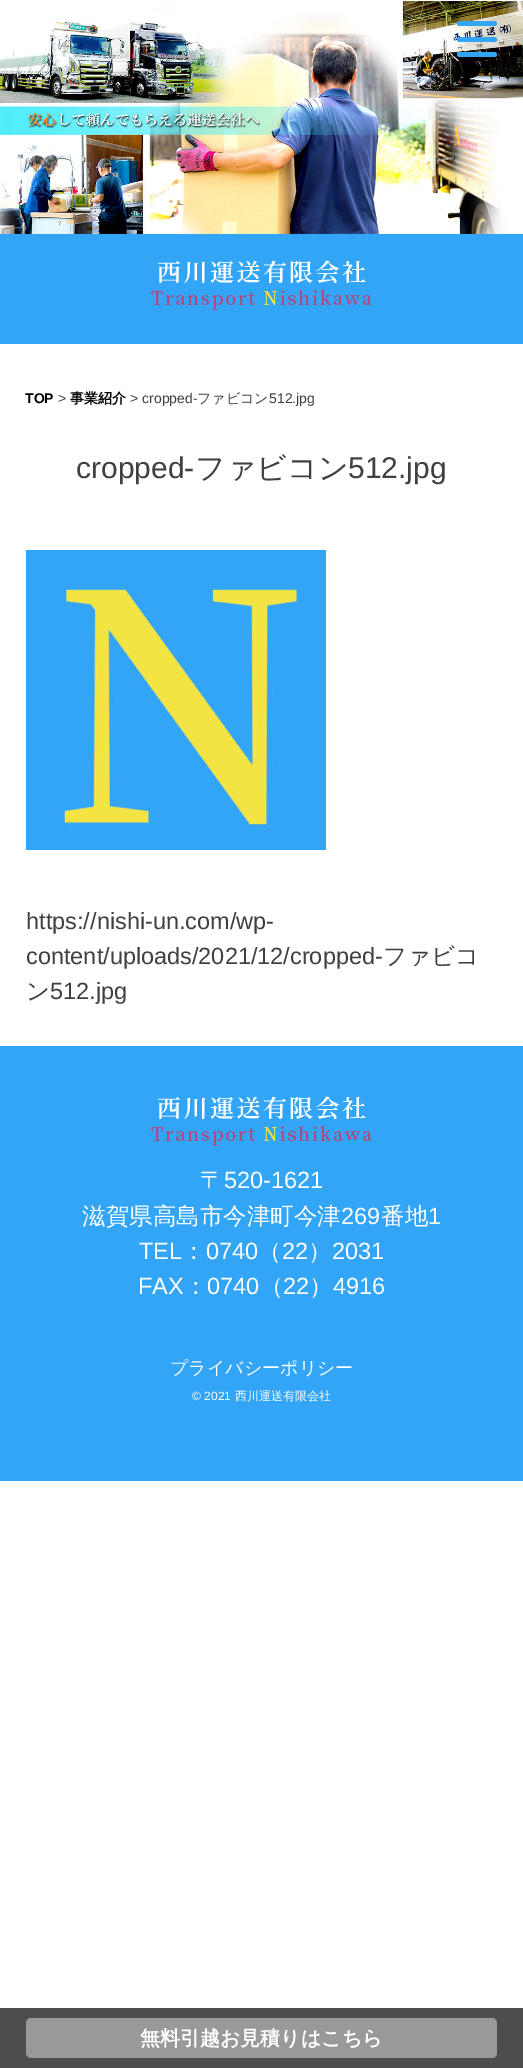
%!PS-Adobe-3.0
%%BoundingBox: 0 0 523 2068
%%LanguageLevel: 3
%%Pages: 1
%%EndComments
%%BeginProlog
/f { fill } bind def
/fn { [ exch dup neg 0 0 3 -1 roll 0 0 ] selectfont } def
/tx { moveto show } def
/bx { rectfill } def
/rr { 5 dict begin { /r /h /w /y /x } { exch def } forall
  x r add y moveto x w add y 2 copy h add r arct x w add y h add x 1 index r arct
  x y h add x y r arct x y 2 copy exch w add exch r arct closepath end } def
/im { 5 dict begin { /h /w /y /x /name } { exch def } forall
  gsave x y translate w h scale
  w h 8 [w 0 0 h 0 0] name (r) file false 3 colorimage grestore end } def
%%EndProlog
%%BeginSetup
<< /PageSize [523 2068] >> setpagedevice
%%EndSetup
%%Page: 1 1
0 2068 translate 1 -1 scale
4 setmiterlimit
1 setgray
0 0 523 2068 bx
(image0.raw) 0 1 523 233 im
0.2 0.647 0.965 setrgbcolor
0 234 523 110 bx
457 21 40 5 2.5 rr f
457 37 40 5 2.5 rr f
457 52 40 5 2.5 rr f
(image1.raw) 151 260 221 50 im
/LiberationSans-Bold 14 fn
0 setgray
(TOP) 25 403 tx
/LiberationSans-Regular 14 fn
0.251 setgray
(>) 58 403 tx
/WenQuanYiZenHei-Bold 14 fn
0 setgray
(事業紹介) 70 403 tx
/LiberationSans-Regular 14 fn
0.251 setgray
(> cropped-) 130 403 tx
/WenQuanYiZenHei-Medium 14 fn
(ファビコン) 197 403 tx
/LiberationSans-Regular 14 fn
(512.jpg) 269 403 tx
/LiberationSans-Regular 30 fn
(cropped-) 76 478 tx
/WenQuanYiZenHei-Medium 30 fn
(ファビコン) 195 478 tx
/LiberationSans-Regular 30 fn
(512.jpg) 348 478 tx
(image2.raw) 26 550 300 300 im
/LiberationSans-Regular 23.5 fn
(https://nishi-un.com/wp-) 26 929 tx
(content/uploads/2021/12/cropped-) 26 964 tx
/WenQuanYiZenHei-Medium 23.5 fn
(ファビコ) 383 964 tx
(ン) 26 999 tx
/LiberationSans-Regular 23.5 fn
(512.jpg) 50 999 tx
0.2 0.647 0.965 setrgbcolor
0 1046 523 435 bx
(image1.raw) 151 1096 221 50 im
/WenQuanYiZenHei-Medium 23.5 fn
1 setgray
(〒) 200 1188 tx
/LiberationSans-Regular 23.5 fn
(520-1621) 224 1188 tx
/WenQuanYiZenHei-Medium 23.5 fn
(滋賀県高島市今津町今津) 82 1224 tx
/LiberationSans-Regular 23.5 fn
(269) 341 1224 tx
/WenQuanYiZenHei-Medium 23.5 fn
(番地) 381 1224 tx
/LiberationSans-Regular 23.5 fn
(1) 428 1224 tx
(TEL) 139 1259 tx
/WenQuanYiZenHei-Medium 23.5 fn
(：) 182 1259 tx
/LiberationSans-Regular 23.5 fn
(0740) 206 1259 tx
/WenQuanYiZenHei-Medium 23.5 fn
(（) 258 1259 tx
/LiberationSans-Regular 23.5 fn
(22) 282 1259 tx
/WenQuanYiZenHei-Medium 23.5 fn
(）) 308 1259 tx
/LiberationSans-Regular 23.5 fn
(2031) 332 1259 tx
(FAX) 138 1294 tx
/WenQuanYiZenHei-Medium 23.5 fn
(：) 184 1294 tx
/LiberationSans-Regular 23.5 fn
(0740) 207 1294 tx
/WenQuanYiZenHei-Medium 23.5 fn
(（) 260 1294 tx
/LiberationSans-Regular 23.5 fn
(22) 283 1294 tx
/WenQuanYiZenHei-Medium 23.5 fn
(）) 309 1294 tx
/LiberationSans-Regular 23.5 fn
(4916) 333 1294 tx
/WenQuanYiZenHei-Medium 18 fn
(プライバシーポリシー) 170 1374 tx
/LiberationSans-Regular 12 fn
(© 2021) 192 1400 tx
/WenQuanYiZenHei-Medium 12 fn
(西川運送有限会社) 235 1400 tx
0.302 setgray
0 2008 523 60 bx
0.6 setgray
26 2018 471 40 5 rr f
/WenQuanYiZenHei-Bold 20 fn
1 setgray
(無料引越お見積りはこちら) 140 2045 tx
showpage
%%EOF
